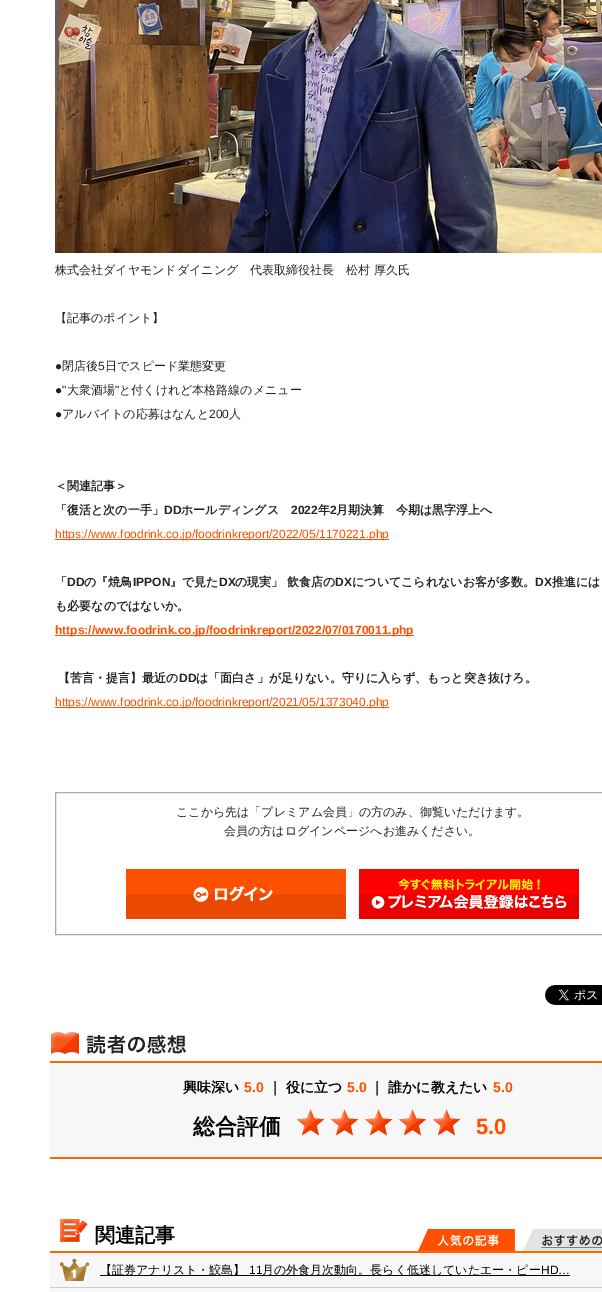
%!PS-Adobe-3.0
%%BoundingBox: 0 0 602 1292
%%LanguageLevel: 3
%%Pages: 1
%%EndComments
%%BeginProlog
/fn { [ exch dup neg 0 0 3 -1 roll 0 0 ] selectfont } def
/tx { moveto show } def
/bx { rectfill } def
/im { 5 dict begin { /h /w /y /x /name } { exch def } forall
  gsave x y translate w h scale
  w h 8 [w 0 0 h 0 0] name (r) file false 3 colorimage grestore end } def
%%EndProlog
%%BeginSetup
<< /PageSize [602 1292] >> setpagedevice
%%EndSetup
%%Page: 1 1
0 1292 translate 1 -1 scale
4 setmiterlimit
1 setgray
0 0 602 1292 bx
(image0.raw) 55 0 547 253 im
/WenQuanYiZenHei-Medium 12 fn
0.133 setgray
(株式会社ダイヤモンドダイニング　代表取締役社長　松村 厚久氏) 55 274 tx
(【記事のポイント】) 55 322 tx
/LiberationSans-Regular 12 fn
(●) 55 370 tx
/WenQuanYiZenHei-Medium 12 fn
(閉店後) 62 370 tx
/LiberationSans-Regular 12 fn
(5) 98 370 tx
/WenQuanYiZenHei-Medium 12 fn
(日でスピード業態変更) 105 370 tx
/LiberationSans-Regular 12 fn
(●") 55 394 tx
/WenQuanYiZenHei-Medium 12 fn
(大衆酒場) 67 394 tx
/LiberationSans-Regular 12 fn
(") 115 394 tx
/WenQuanYiZenHei-Medium 12 fn
(と付くけれど本格路線のメニュー) 119 394 tx
/LiberationSans-Regular 12 fn
(●) 55 418 tx
/WenQuanYiZenHei-Medium 12 fn
(アルバイトの応募はなんと) 62 418 tx
/LiberationSans-Regular 12 fn
(200) 209 418 tx
/WenQuanYiZenHei-Medium 12 fn
(人) 229 418 tx
/WenQuanYiZenHei-Bold 12 fn
(＜関連記事＞) 55 490 tx
(「復活と次の一手」) 55 514 tx
/LiberationSans-Bold 12 fn
(DD) 164 514 tx
/WenQuanYiZenHei-Bold 12 fn
(ホールディングス) 181 514 tx
/LiberationSans-Bold 12 fn
(2022) 291 514 tx
/WenQuanYiZenHei-Bold 12 fn
(年) 318 514 tx
/LiberationSans-Bold 12 fn
(2) 330 514 tx
/WenQuanYiZenHei-Bold 12 fn
(月期決算　今期は黒字浮上へ) 336 514 tx
1 0.314 0 setrgbcolor
55 539 334 1 bx
/LiberationSans-Regular 12 fn
(https://www.foodrink.co.jp/foodrinkreport/2022/05/1170221.php) 55 538 tx
/WenQuanYiZenHei-Bold 12 fn
0.133 setgray
(「) 55 586 tx
/LiberationSans-Bold 12 fn
(DD) 67 586 tx
/WenQuanYiZenHei-Bold 12 fn
(の『焼鳥) 84 586 tx
/LiberationSans-Bold 12 fn
(IPPON) 133 586 tx
/WenQuanYiZenHei-Bold 12 fn
(』で見た) 170 586 tx
/LiberationSans-Bold 12 fn
(DX) 219 586 tx
/WenQuanYiZenHei-Bold 12 fn
(の現実」 飲食店の) 235 586 tx
/LiberationSans-Bold 12 fn
(DX) 335 586 tx
/WenQuanYiZenHei-Bold 12 fn
(についてこられないお客が多数。) 352 586 tx
/LiberationSans-Bold 12 fn
(DX) 535 586 tx
/WenQuanYiZenHei-Bold 12 fn
(推進には) 552 586 tx
(も必要なのではないか。) 55 610 tx
1 0.314 0 setrgbcolor
55 635 359 1 bx
/LiberationSans-Bold 12 fn
(https://www.foodrink.co.jp/foodrinkreport/2022/07/0170011.php) 55 634 tx
/WenQuanYiZenHei-Bold 12 fn
0.133 setgray
(【苦言・提言】最近の) 58 682 tx
/LiberationSans-Bold 12 fn
(DD) 179 682 tx
/WenQuanYiZenHei-Bold 12 fn
(は「面白さ」が足りない。守りに入らず、もっと突き抜けろ。) 196 682 tx
1 0.314 0 setrgbcolor
55 707 334 1 bx
/LiberationSans-Regular 12 fn
(https://www.foodrink.co.jp/foodrinkreport/2021/05/1373040.php) 55 706 tx
0.675 setgray
55.5 792.5 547 142 rectstroke
/WenQuanYiZenHei-Medium 12 fn
0.133 setgray
(ここから先は「プレミアム会員」の方のみ、御覧いただけます。) 176 816 tx
(会員の方はログインページへお進みください。) 224 835 tx
(image1.raw) 126 869 220 50 im
(image2.raw) 359 869 220 50 im
(image3.raw) 545 985 57 20 im
(image4.raw) 51 1032 135 22 im
0.969 setgray
50 1063 552 94 bx
1 0.4 0 setrgbcolor
50 1061 552 2 bx
/WenQuanYiZenHei-Bold 14 fn
0 setgray
(興味深い) 183 1092 tx
/LiberationSans-Bold 14 fn
1 0.314 0 setrgbcolor
(5.0) 244 1092 tx
/WenQuanYiZenHei-Bold 14 fn
0 setgray
(｜ 役に立つ) 268 1092 tx
/LiberationSans-Bold 14 fn
1 0.314 0 setrgbcolor
(5.0) 347 1092 tx
/WenQuanYiZenHei-Bold 14 fn
0 setgray
(｜ 誰かに教えたい) 370 1092 tx
/LiberationSans-Bold 14 fn
1 0.314 0 setrgbcolor
(5.0) 493 1092 tx
1 0.4 0 setrgbcolor
50 1157 552 2 bx
/WenQuanYiZenHei-Bold 22 fn
0 setgray
(総合評価) 193 1134 tx
(image5.raw) 296 1109 29 27 im
(image5.raw) 330 1109 29 27 im
(image5.raw) 364 1109 29 27 im
(image5.raw) 398 1109 29 27 im
(image5.raw) 432 1109 29 27 im
/LiberationSans-Bold 22 fn
1 0.314 0 setrgbcolor
(5.0) 476 1134 tx
(image6.raw) 60 1219 28 23 im
/WenQuanYiZenHei-Bold 20 fn
0 setgray
(関連記事) 95 1242 tx
(image7.raw) 418 1229 97 22 im
(image8.raw) 523 1229 79 22 im
1 0.4 0 setrgbcolor
50 1251 552 2 bx
0.969 setgray
50 1253 552 34 bx
0.804 setgray
50 1287 552 1 bx
(image9.raw) 60 1259 29 22 im
0 setgray
100 1275 470 1 bx
/WenQuanYiZenHei-Medium 12 fn
(【証券アナリスト・鮫島】) 100 1274 tx
/LiberationSans-Regular 12 fn
(11) 249 1274 tx
/WenQuanYiZenHei-Medium 12 fn
(月の外食月次動向。長らく低迷していたエー・ピー) 262 1274 tx
/LiberationSans-Regular 12 fn
(HD…) 541 1274 tx
0.969 setgray
50 1288 552 4 bx
showpage
%%EOF
